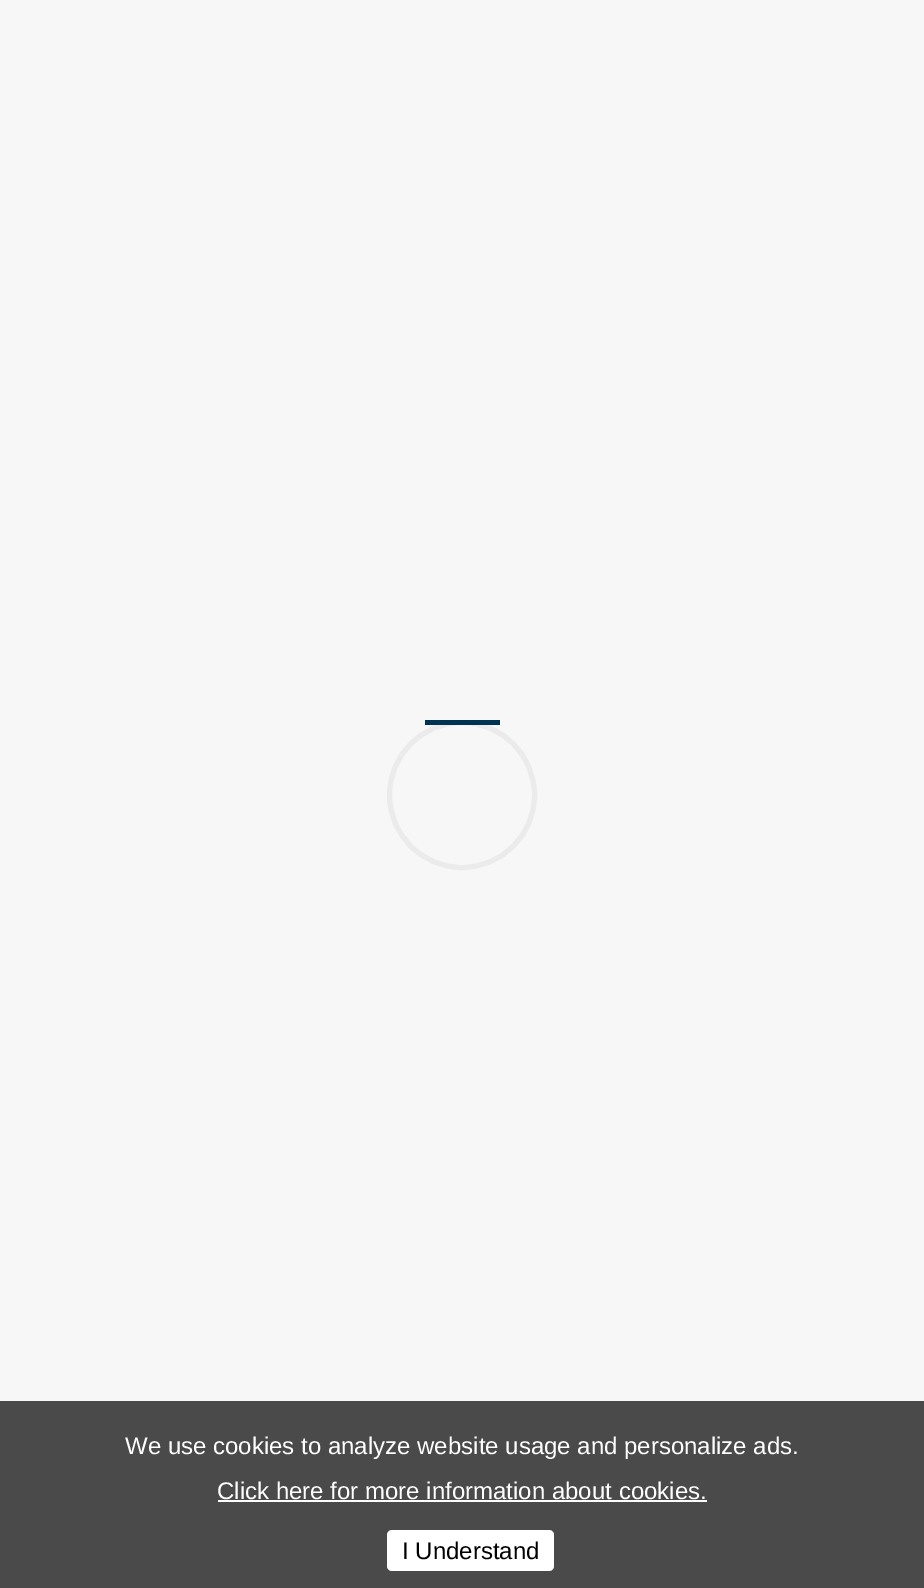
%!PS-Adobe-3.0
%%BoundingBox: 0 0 924 1588
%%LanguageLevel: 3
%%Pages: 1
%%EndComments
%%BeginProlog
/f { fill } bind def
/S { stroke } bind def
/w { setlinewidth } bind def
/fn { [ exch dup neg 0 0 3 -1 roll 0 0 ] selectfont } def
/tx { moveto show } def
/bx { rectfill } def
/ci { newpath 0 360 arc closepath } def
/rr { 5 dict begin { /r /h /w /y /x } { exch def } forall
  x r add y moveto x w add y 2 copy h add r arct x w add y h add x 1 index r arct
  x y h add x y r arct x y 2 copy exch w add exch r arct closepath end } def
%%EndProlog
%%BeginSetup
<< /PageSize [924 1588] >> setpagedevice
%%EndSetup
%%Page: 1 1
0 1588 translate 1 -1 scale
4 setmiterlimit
0.969 setgray
0 0 924 1588 bx
0.922 0.922 0.925 setrgbcolor
5 w
462 795 72.5 ci S
0 0.196 0.322 setrgbcolor
425 720 75 5 bx
0.29 setgray
0 1401 924 187 bx
/LiberationSans-Regular 24 fn
1 setgray
(We use cookies to analyze website usage and personalize ads.) 125 1454 tx
(Click here for more information about cookies.) 217 1499 tx
218 1500 489 2 bx
387 1530 167 41 5 rr f
0 setgray
(I Understand) 402 1559 tx
showpage
%%EOF
